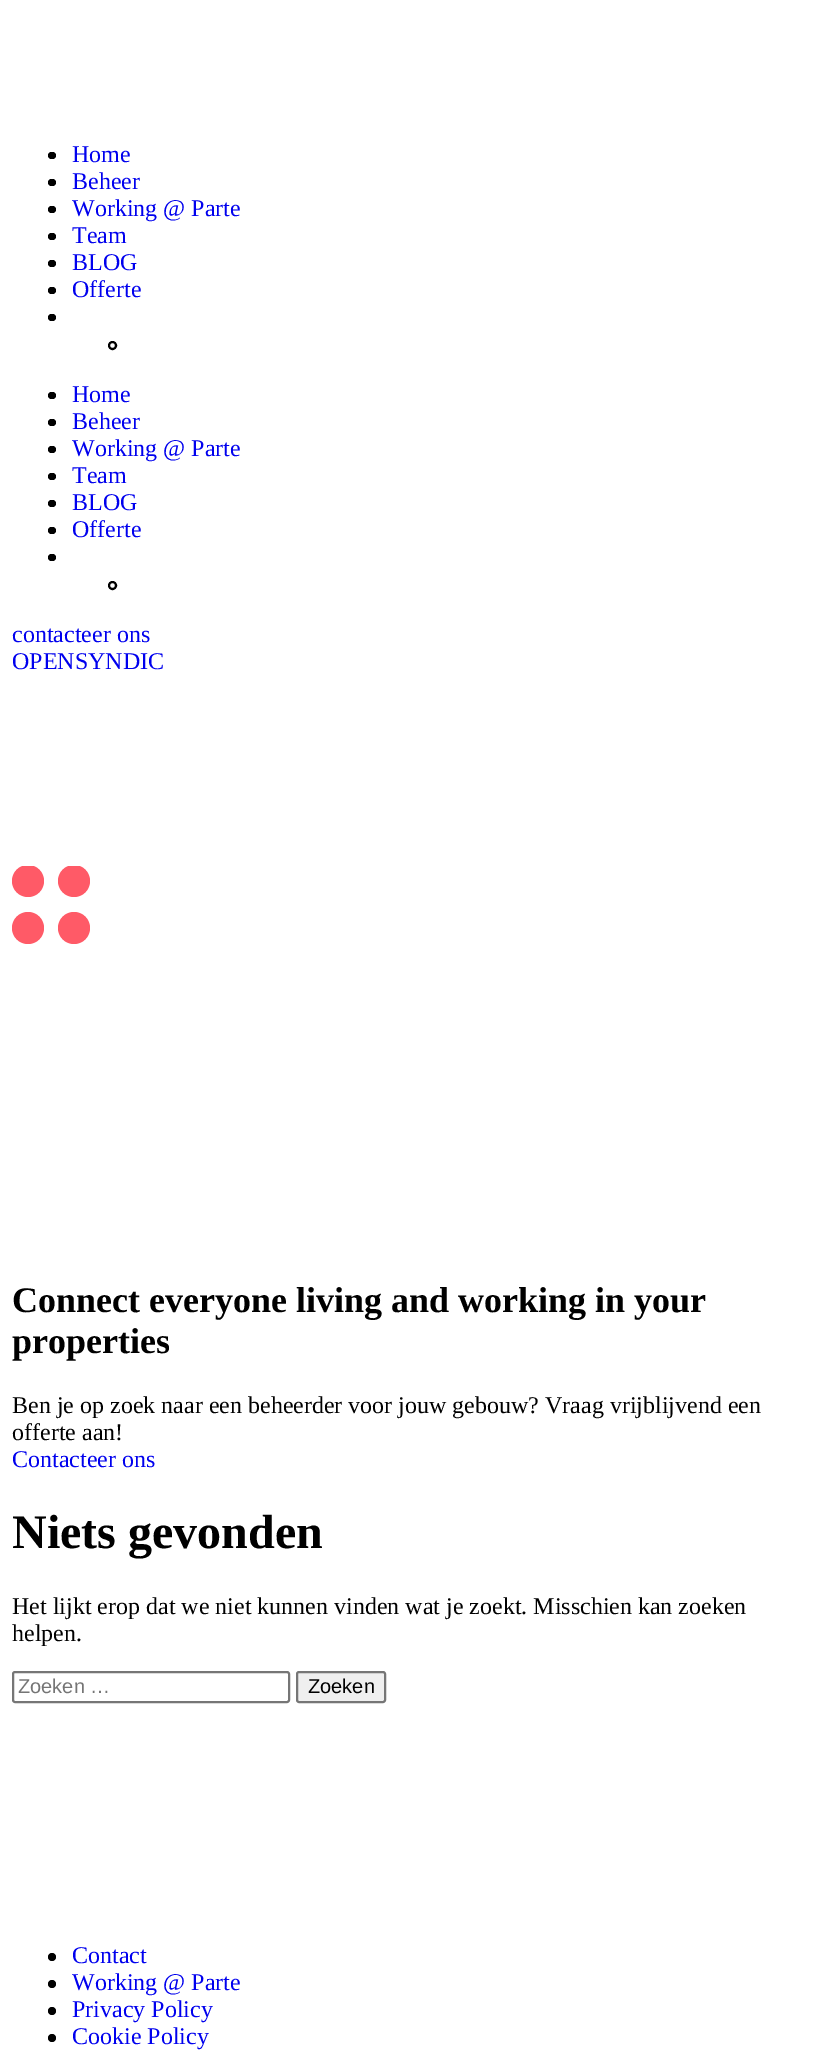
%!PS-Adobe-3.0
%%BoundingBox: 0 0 834 2061
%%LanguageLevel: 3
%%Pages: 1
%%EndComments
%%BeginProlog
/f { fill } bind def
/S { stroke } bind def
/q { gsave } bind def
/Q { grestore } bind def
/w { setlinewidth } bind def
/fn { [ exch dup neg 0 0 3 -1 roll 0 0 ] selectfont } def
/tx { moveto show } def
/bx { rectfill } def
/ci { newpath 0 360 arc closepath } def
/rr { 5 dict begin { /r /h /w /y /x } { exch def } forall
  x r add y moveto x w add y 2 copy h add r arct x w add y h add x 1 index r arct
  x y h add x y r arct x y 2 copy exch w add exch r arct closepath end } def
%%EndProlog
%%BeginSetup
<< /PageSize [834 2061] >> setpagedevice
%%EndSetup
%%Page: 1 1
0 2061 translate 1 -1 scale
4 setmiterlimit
1 setgray
0 0 834 2061 bx
0 setgray
48 152 8 7 3.5 rr f
/LiberationSerif-Regular 24 fn
0 0 0.933 setrgbcolor
(Home) 72 162 tx
0 setgray
48 179 8 7 3.5 rr f
0 0 0.933 setrgbcolor
(Beheer) 72 189 tx
0 setgray
48 206 8 7 3.5 rr f
0 0 0.933 setrgbcolor
(Working @ Parte) 72 216 tx
0 setgray
48 233 8 7 3.5 rr f
0 0 0.933 setrgbcolor
(Team) 72 243 tx
0 setgray
48 260 8 7 3.5 rr f
0 0 0.933 setrgbcolor
(BLOG) 72 270 tx
0 setgray
48 287 8 7 3.5 rr f
0 0 0.933 setrgbcolor
(Offerte) 72 297 tx
0 setgray
48 314 8 7 3.5 rr f
2 w
112.5 345.5 3.5 ci S
48 392 8 7 3.5 rr f
0 0 0.933 setrgbcolor
(Home) 72 402 tx
0 setgray
48 419 8 7 3.5 rr f
0 0 0.933 setrgbcolor
(Beheer) 72 429 tx
0 setgray
48 446 8 7 3.5 rr f
0 0 0.933 setrgbcolor
(Working @ Parte) 72 456 tx
0 setgray
48 473 8 7 3.5 rr f
0 0 0.933 setrgbcolor
(Team) 72 483 tx
0 setgray
48 500 8 7 3.5 rr f
0 0 0.933 setrgbcolor
(BLOG) 72 510 tx
0 setgray
48 527 8 7 3.5 rr f
0 0 0.933 setrgbcolor
(Offerte) 72 537 tx
0 setgray
48 554 8 7 3.5 rr f
112.5 585.5 3.5 ci S
0 0 0.933 setrgbcolor
(contacteer ons) 12 642 tx
(OPENSYNDIC) 12 669 tx
q
12 866 78 78 rectclip
1 0.353 0.404 setrgbcolor
28 881 16 ci f
74 881 16 ci f
Q
1 0.353 0.404 setrgbcolor
28 928 16 ci f
74 928 16 ci f
/LiberationSerif-Bold 36 fn
0 setgray
(Connect everyone living and working in your) 12 1312 tx
(properties) 12 1353 tx
/LiberationSerif-Regular 24 fn
(Ben je op zoek naar een beheerder voor jouw gebouw? Vraag vrijblijvend een) 12 1413 tx
(offerte aan!) 12 1440 tx
0 0 0.933 setrgbcolor
(Contacteer ons) 12 1467 tx
/LiberationSerif-Bold 48 fn
0 setgray
(Niets gevonden) 12 1548 tx
/LiberationSerif-Regular 24 fn
(Het lijkt erop dat we niet kunnen vinden wat je zoekt. Misschien kan zoeken) 12 1614 tx
(helpen.) 12 1641 tx
0.463 setgray
13 1672 276 30 2 rr S
/LiberationSans-Regular 20 fn
0.459 setgray
(Zoeken …) 18 1693 tx
0.937 setgray
297 1672 88 30 2 rr q f Q
0.463 setgray
S
0 setgray
(Zoeken) 308 1693 tx
52 1957 4 ci f
/LiberationSerif-Regular 24 fn
0 0 0.933 setrgbcolor
(Contact) 72 1963 tx
0 setgray
52 1984 4 ci f
0 0 0.933 setrgbcolor
(Working @ Parte) 72 1990 tx
0 setgray
52 2011 4 ci f
0 0 0.933 setrgbcolor
(Privacy Policy) 72 2017 tx
0 setgray
52 2038 4 ci f
0 0 0.933 setrgbcolor
(Cookie Policy) 72 2044 tx
showpage
%%EOF
